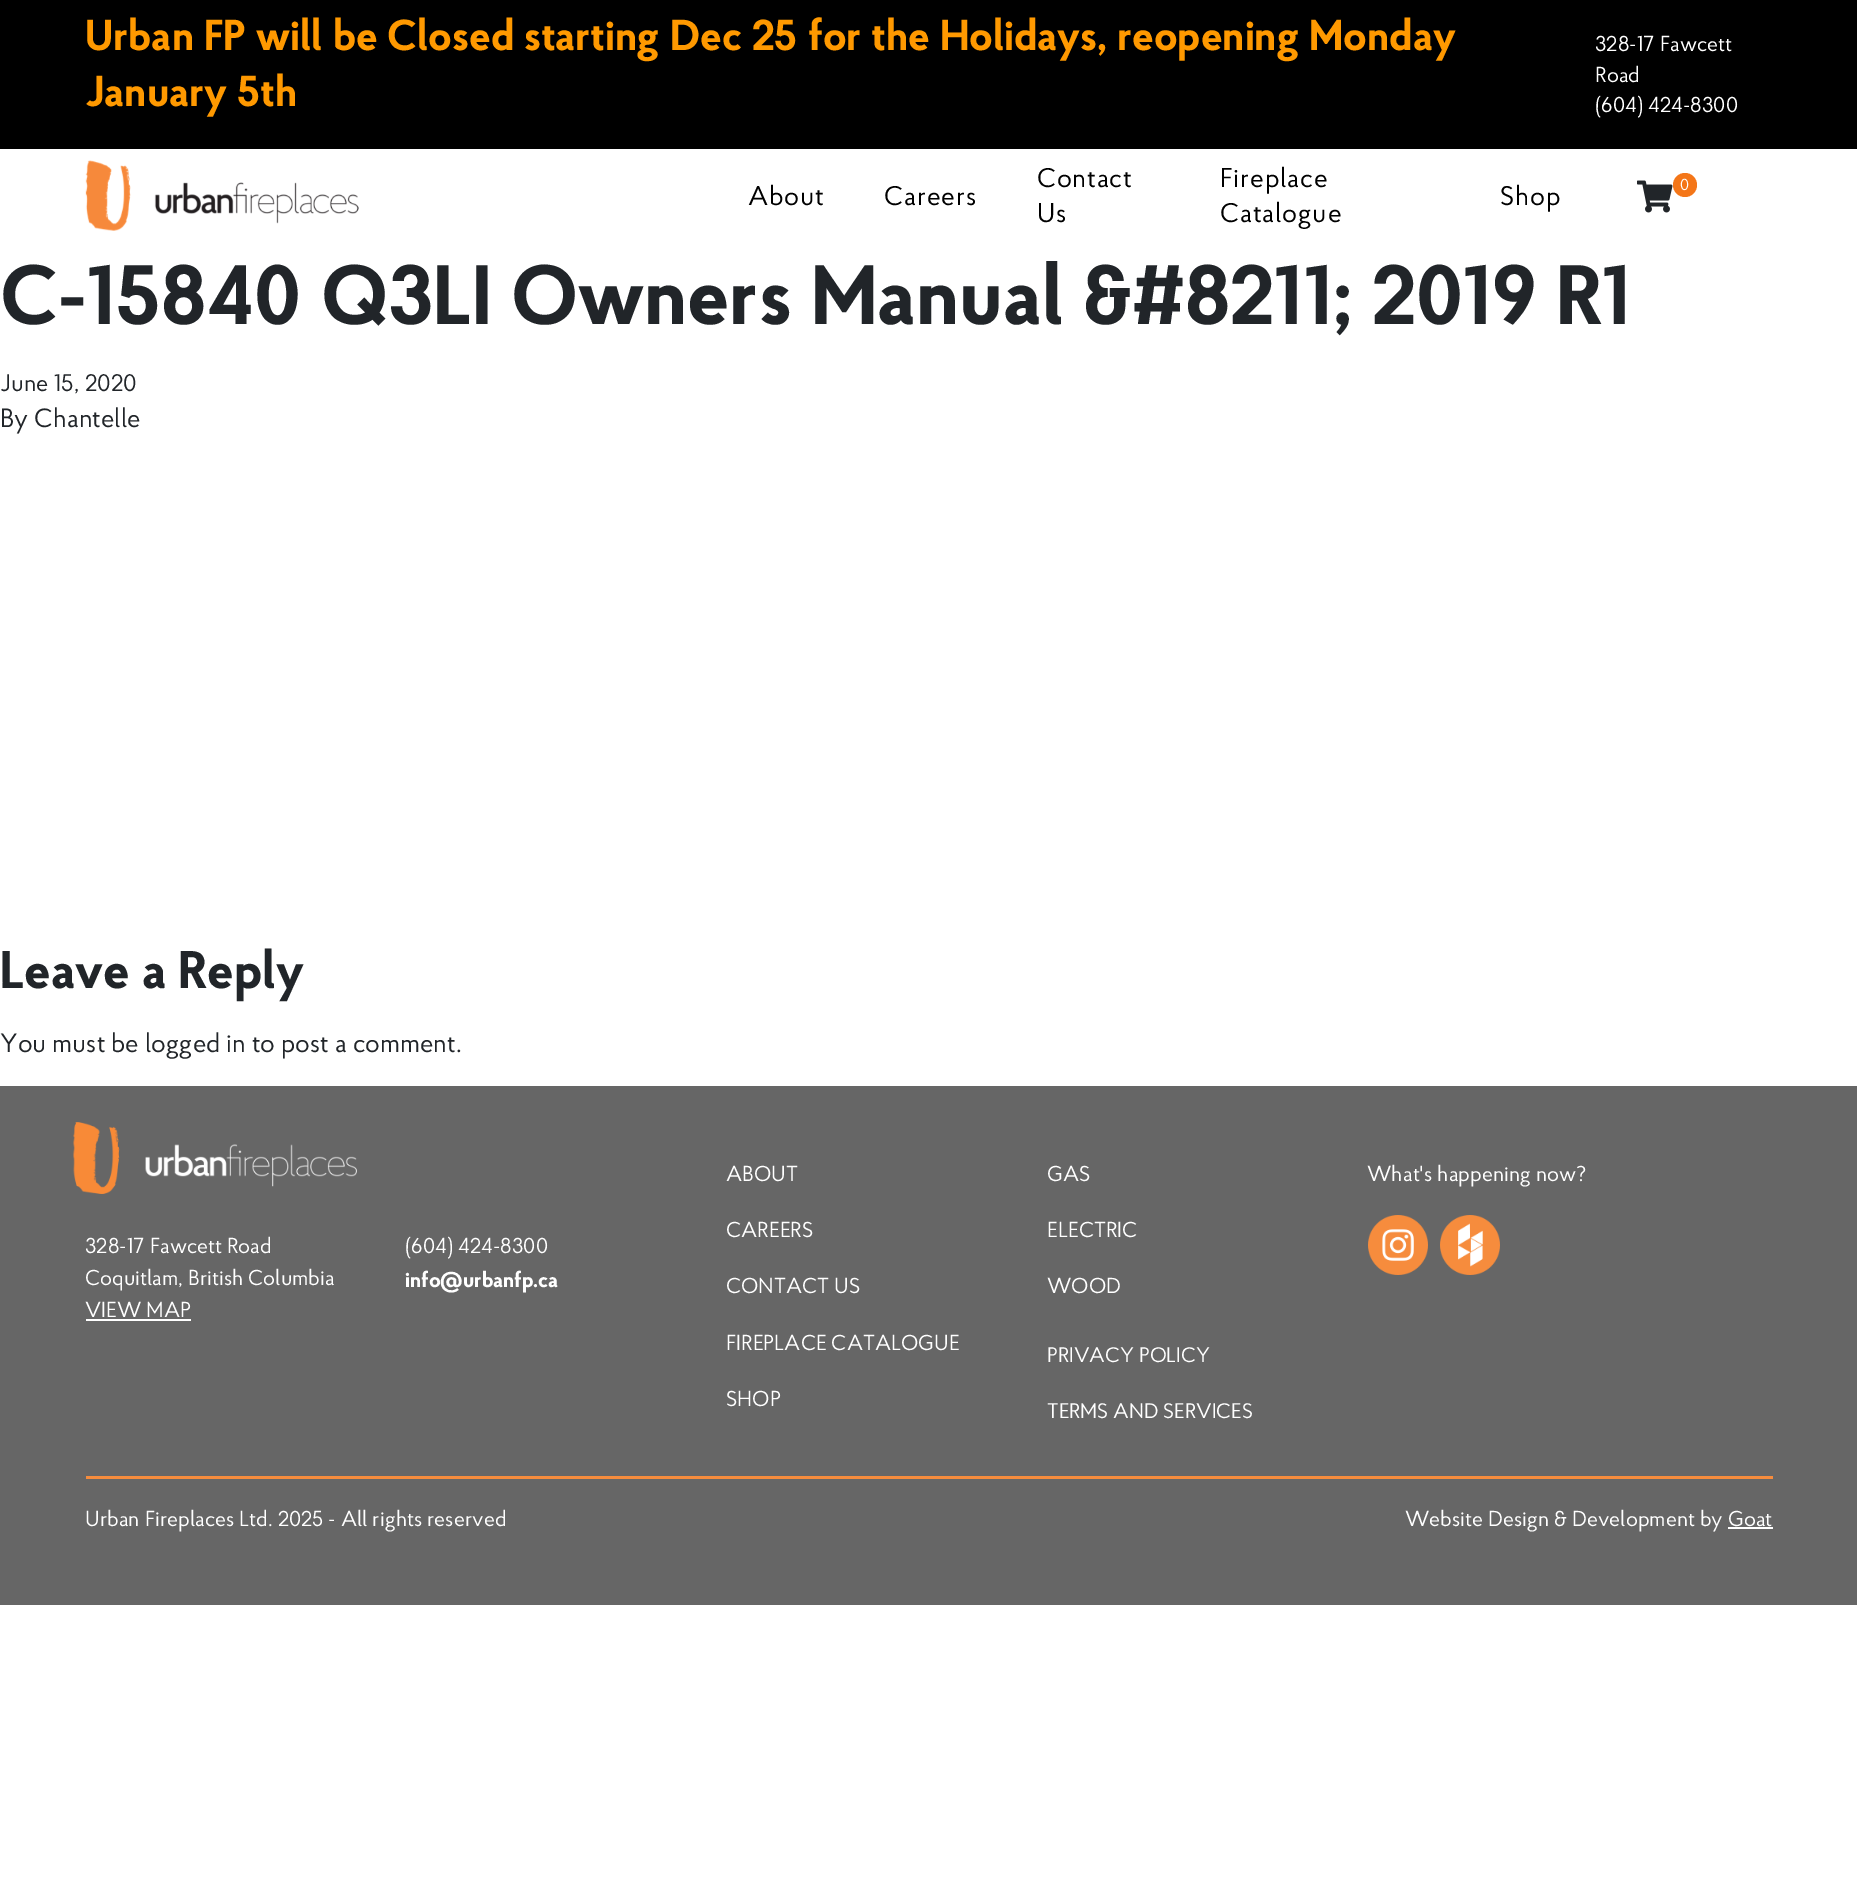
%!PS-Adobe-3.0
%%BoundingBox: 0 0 1857 1888
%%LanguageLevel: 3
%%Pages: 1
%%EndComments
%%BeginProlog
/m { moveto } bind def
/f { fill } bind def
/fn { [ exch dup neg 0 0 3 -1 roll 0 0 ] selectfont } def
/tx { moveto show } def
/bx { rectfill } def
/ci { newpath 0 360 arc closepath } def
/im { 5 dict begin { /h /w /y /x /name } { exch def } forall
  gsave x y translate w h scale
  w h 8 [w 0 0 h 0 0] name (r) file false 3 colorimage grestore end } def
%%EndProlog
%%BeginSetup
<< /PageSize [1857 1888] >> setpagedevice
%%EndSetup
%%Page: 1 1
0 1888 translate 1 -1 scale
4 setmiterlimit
1 setgray
0 0 1857 1888 bx
0 setgray
0 0 1857 149 bx
/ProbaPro-Bold 43.2 fn
1 0.6 0 setrgbcolor
(Urban FP will be Closed starting Dec 25 for the Holidays, reopening Monday) 85 50 tx
(January 5th) 85 106 tx
/ProbaPro-Regular 21.6 fn
1 setgray
(328-17 Fawcett) 1595 51 tx
(Road) 1595 82 tx
(\(604\) 424-8300) 1595 112 tx
(image0.raw) 85 160 274 71 im
/ProbaPro-Regular 27 fn
0 setgray
748 205 m 0.75 0 (About) ashow
884 205 m 0.75 0 (Careers) ashow
1037 187 m 0.75 0 (Contact) ashow
1037 222 m 0.75 0 (Us) ashow
1220 187 m 0.75 0 (Fireplace) ashow
1220 222 m 0.75 0 (Catalogue) ashow
1500 205 m 0.75 0 (Shop) ashow
(image1.raw) 1637 180 36 33 im
0.957 0.463 0.094 setrgbcolor
1685 185 12 ci f
/ProbaPro-Regular 16 fn
1 setgray
(0) 1680 190 tx
/ProbaPro-Bold 84 fn
0.129 0.145 0.161 setrgbcolor
(C-15840 Q3LI Owners Manual &#8211; 2019 R1) 0 324 tx
/ProbaPro-Regular 24 fn
(June 15, 2020) 0 391 tx
/ProbaPro-Regular 26.4 fn
(By Chantelle) 0 427 tx
/ProbaPro-Bold 52.75 fn
(Leave a Reply) 0 988 tx
/ProbaPro-Regular 26.4 fn
(You must be logged in to post a comment.) 0 1052 tx
0.4 setgray
0 1086 1857 519 bx
(image2.raw) 73 1122 284 72 im
/ProbaPro-Regular 21.6 fn
1 setgray
(328-17 Fawcett Road) 85 1253 tx
(Coquitlam, British Columbia) 85 1285 tx
(VIEW MAP) 85 1317 tx
86 1319 105 2 bx
(\(604\) 424-8300) 405 1253 tx
/ProbaPro-Bold 21.6 fn
(info@urbanfp.ca) 405 1287 tx
/ProbaPro-Regular 21.6 fn
(ABOUT) 726 1181 tx
(CAREERS) 726 1237 tx
(CONTACT US) 726 1293 tx
(FIREPLACE CATALOGUE) 726 1350 tx
(SHOP) 726 1406 tx
(GAS) 1047 1181 tx
(ELECTRIC) 1047 1237 tx
(WOOD) 1047 1293 tx
/ProbaPro-Regular 21 fn
(PRIVACY POLICY) 1047 1362 tx
(TERMS AND SERVICES) 1047 1418 tx
/ProbaPro-Regular 21.6 fn
(What's happening now?) 1367 1181 tx
(image3.raw) 1368 1215 60 60 im
(image4.raw) 1440 1215 60 60 im
0.965 0.549 0.239 setrgbcolor
86 1476 1687 3 bx
1 setgray
(Urban Fireplaces Ltd. 2025 - All rights reserved) 85 1526 tx
(Website Design & Development by Goat) 1405 1526 tx
1728 1527 45 2 bx
showpage
%%EOF
